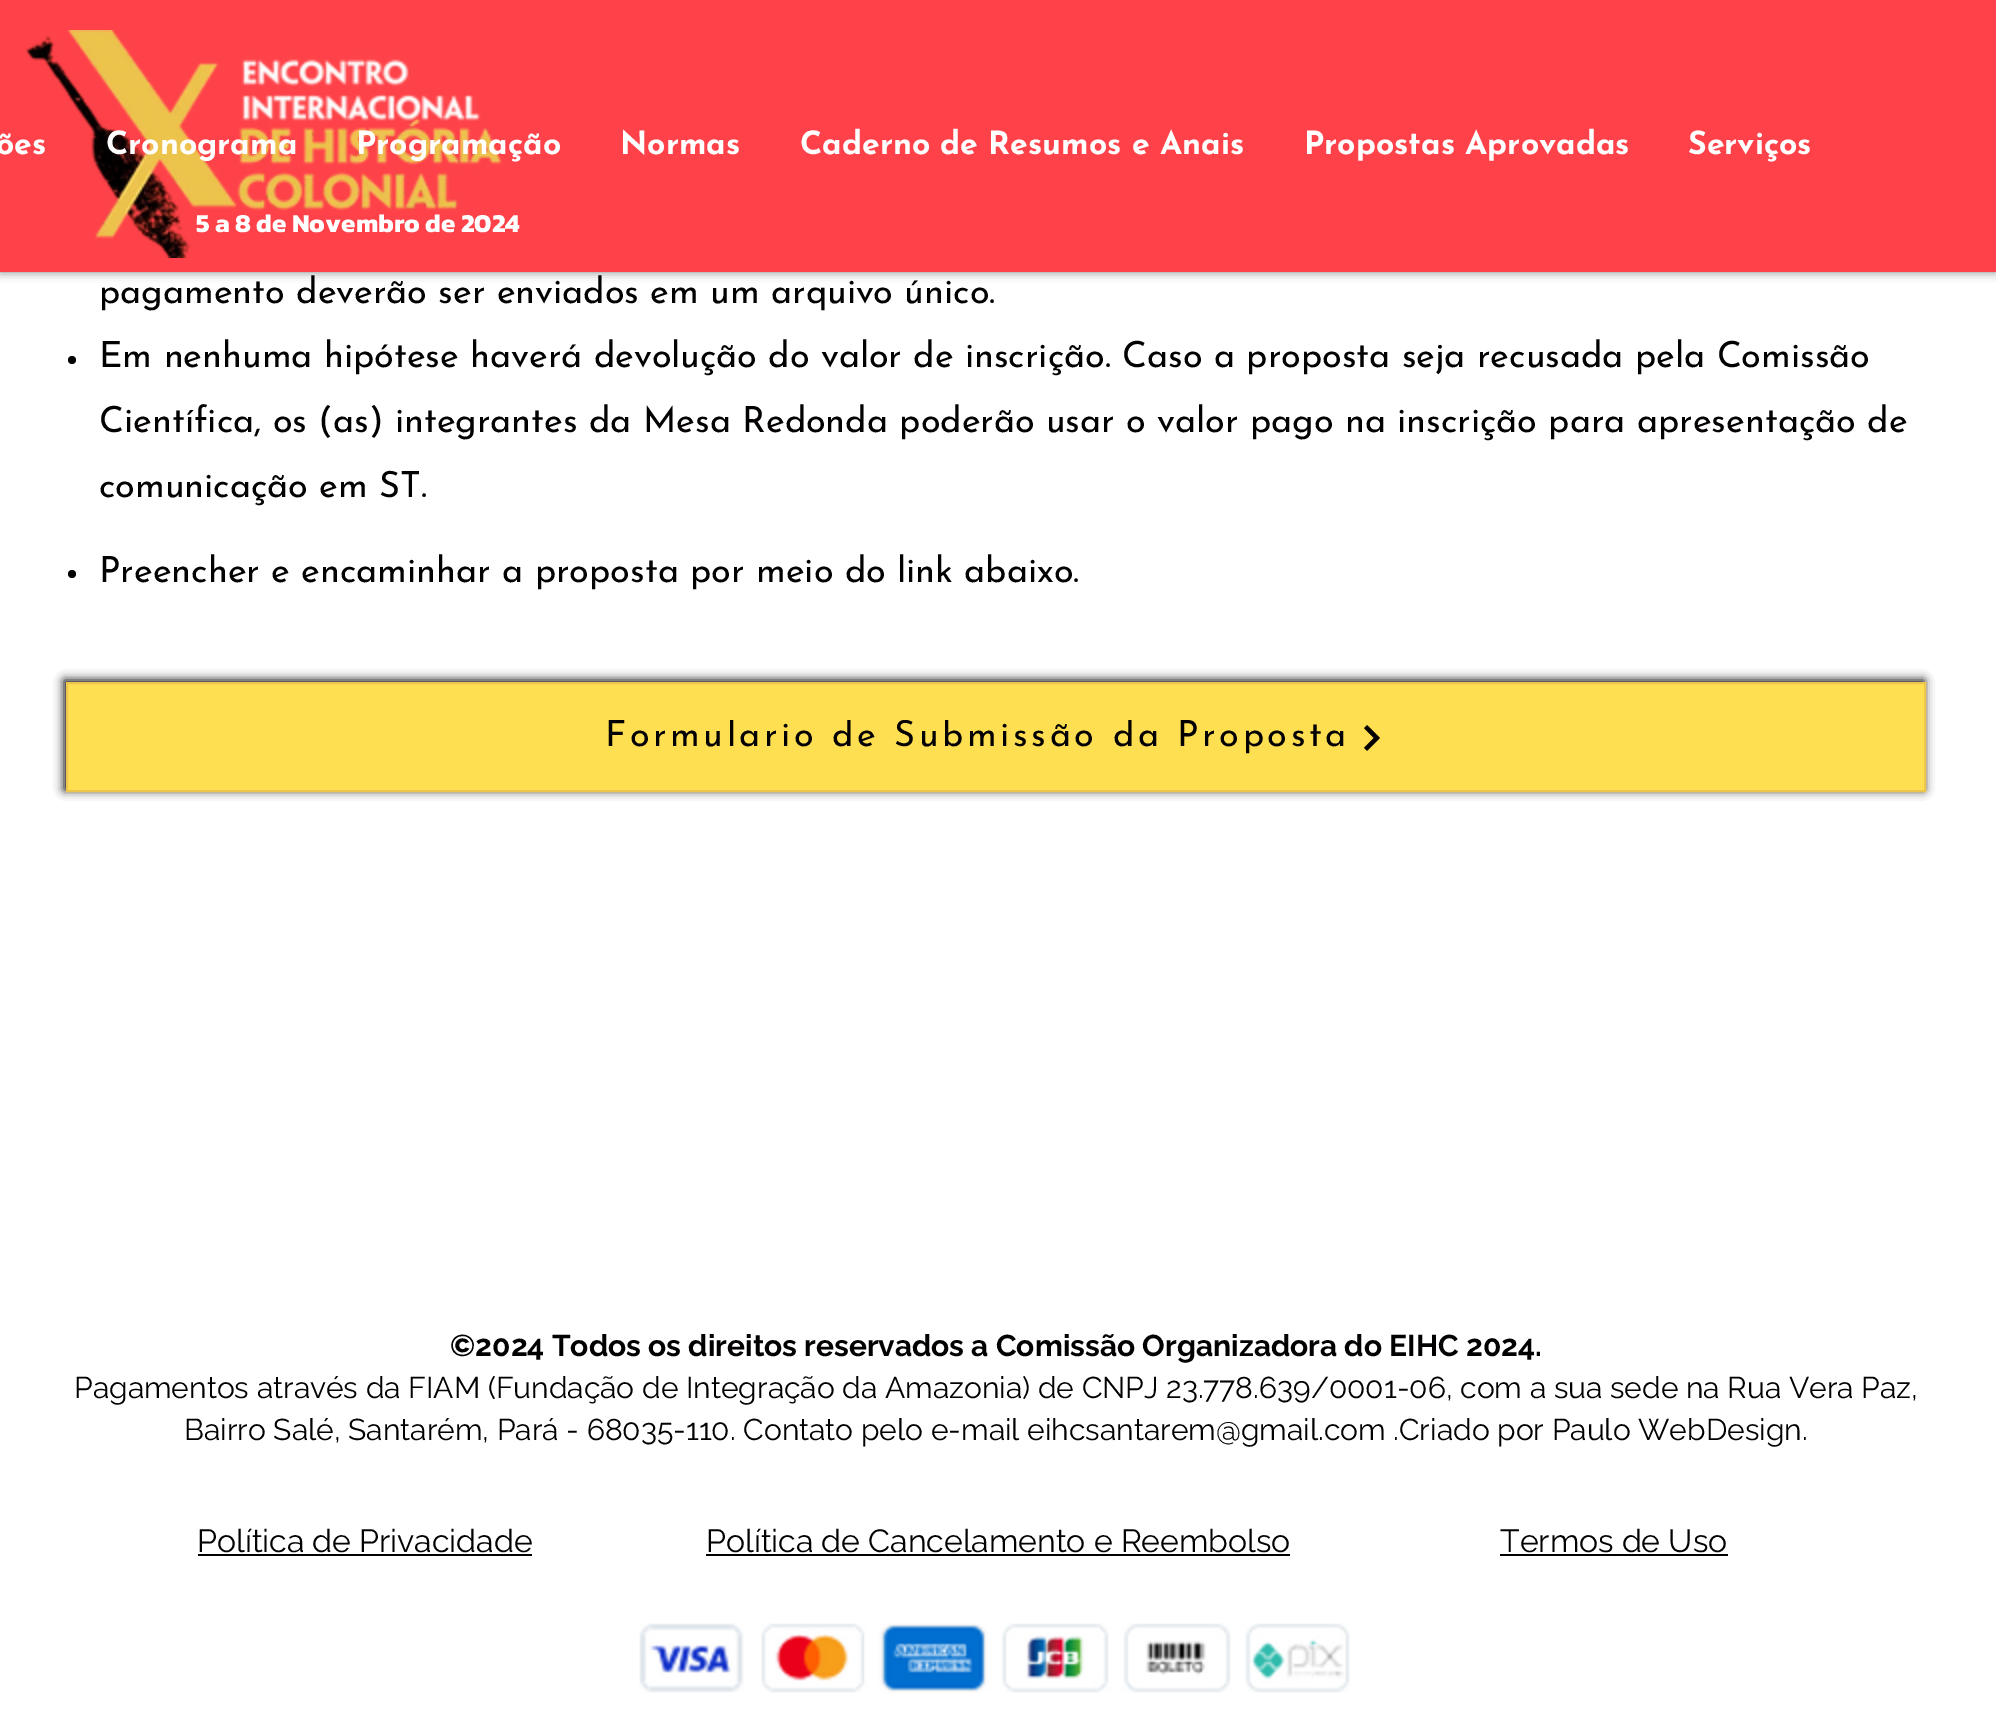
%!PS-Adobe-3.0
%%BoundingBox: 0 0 1996 1718
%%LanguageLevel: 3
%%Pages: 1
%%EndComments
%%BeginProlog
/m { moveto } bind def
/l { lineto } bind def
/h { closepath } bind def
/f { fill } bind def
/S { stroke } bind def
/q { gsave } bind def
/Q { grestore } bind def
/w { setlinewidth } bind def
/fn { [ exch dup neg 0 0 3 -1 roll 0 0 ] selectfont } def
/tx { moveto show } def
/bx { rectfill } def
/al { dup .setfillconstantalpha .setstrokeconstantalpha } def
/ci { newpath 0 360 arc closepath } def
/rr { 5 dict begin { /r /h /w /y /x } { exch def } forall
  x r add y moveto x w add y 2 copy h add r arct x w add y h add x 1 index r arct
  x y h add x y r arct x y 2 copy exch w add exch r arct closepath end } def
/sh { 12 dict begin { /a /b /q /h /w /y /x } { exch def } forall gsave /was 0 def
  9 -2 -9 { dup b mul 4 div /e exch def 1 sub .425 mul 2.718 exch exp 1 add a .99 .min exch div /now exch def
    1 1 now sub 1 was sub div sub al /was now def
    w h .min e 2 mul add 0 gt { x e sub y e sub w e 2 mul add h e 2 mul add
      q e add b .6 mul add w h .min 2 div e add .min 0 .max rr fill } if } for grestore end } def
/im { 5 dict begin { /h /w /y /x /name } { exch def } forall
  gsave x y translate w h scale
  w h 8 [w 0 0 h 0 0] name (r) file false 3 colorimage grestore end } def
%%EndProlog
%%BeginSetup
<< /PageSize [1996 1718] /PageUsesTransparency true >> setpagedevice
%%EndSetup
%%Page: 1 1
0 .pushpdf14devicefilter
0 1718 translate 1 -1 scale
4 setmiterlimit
1 setgray
0 0 1996 1718 bx
0 setgray
0 0 1996 272 0 5 0.5 sh
1 0.259 0.286 setrgbcolor
0 0 1996 272 bx
(image0.raw) 25 30 478 228 im
/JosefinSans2-Thin 32 fn
1 setgray
(ões) -4 154 tx
(Cronograma) 106 154 tx
(Programação) 356 154 tx
(Normas) 620 154 tx
(Caderno de Resumos e Anais) 800 154 tx
(Propostas Aprovadas) 1304 154 tx
(Serviços) 1688 154 tx
/Kanit-Bold 26 fn
(5 a 8 de Novembro de 2024) 196 232 tx
/JosefinSans-Thin 36 fn
0.008 0 0 setrgbcolor
(pagamento deverão ser enviados em um arquivo único.) 99 303 tx
72 360 4 ci f
(Em nenhuma hipótese haverá devolução do valor de inscrição. Caso a proposta seja recusada pela Comissão) 99 367 tx
(Científica, os \(as\) integrantes da Mesa Redonda poderão usar o valor pago na inscrição para apresentação de) 99 432 tx
(comunicação em ST.) 99 497 tx
72 574 4 ci f
(Preencher e encaminhar a proposta por meio do link abaixo.) 99 582 tx
0 setgray
64 680 1860 110 0 5 1 sh
1 0.875 0.322 setrgbcolor
67 683 m 1925 683 l 1925 791 l 67 791 l h q f Q
0.929 0.769 0.298 setrgbcolor
2 w
S
q
606 720 744 36 rectclip
0.008 0 0 setrgbcolor
605 746 m 3.6 0 (Formulario de Submissão da Proposta) ashow
Q
(image1.raw) 1364 725 16 26 im
/Raleway-Bold 30 fn
0.008 0 0 setrgbcolor
(©2024 Todos os direitos reservados a Comissão Organizadora do EIHC 2024.) 450 1356 tx
/Raleway-Regular 30 fn
(Pagamentos através da FIAM \(Fundação de Integração da Amazonia\) de CNPJ 23.778.639/0001-06, com a sua sede na Rua Vera Paz,) 74 1398 tx
(Bairro Salé, Santarém, Pará - 68035-110. Contato pelo e-mail eihcsantarem@gmail.com .Criado por Paulo WebDesign.) 184 1440 tx
/Raleway-Regular 32 fn
(Política de Privacidade) 197 1552 tx
198 1554 334 2 bx
(Política de Cancelamento e Reembolso) 706 1552 tx
706 1554 584 2 bx
(Termos de Uso) 1500 1552 tx
1500 1554 228 2 bx
(image2.raw) 639 1623 711 70 im
.poppdf14devicefilter showpage
%%EOF
